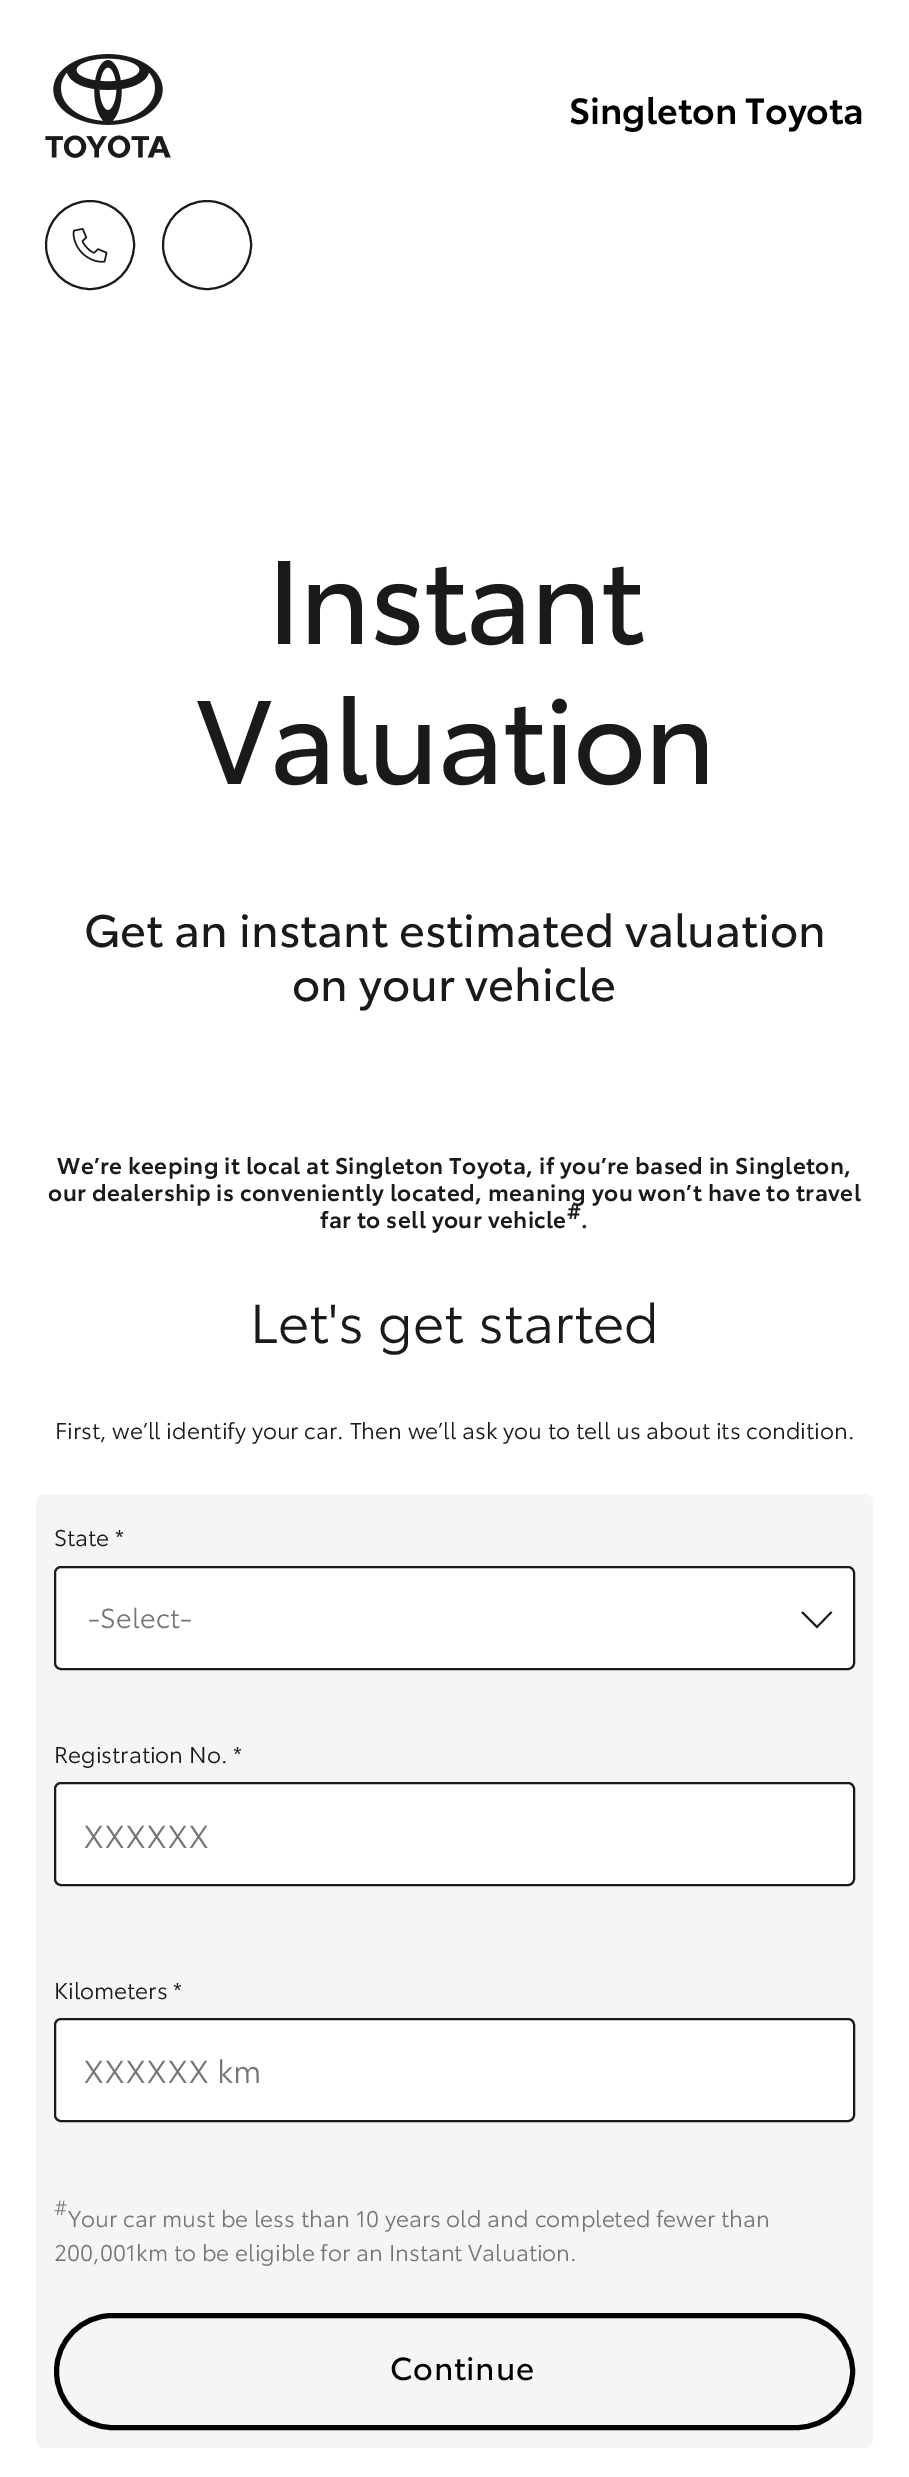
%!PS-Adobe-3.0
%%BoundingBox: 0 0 909 2477
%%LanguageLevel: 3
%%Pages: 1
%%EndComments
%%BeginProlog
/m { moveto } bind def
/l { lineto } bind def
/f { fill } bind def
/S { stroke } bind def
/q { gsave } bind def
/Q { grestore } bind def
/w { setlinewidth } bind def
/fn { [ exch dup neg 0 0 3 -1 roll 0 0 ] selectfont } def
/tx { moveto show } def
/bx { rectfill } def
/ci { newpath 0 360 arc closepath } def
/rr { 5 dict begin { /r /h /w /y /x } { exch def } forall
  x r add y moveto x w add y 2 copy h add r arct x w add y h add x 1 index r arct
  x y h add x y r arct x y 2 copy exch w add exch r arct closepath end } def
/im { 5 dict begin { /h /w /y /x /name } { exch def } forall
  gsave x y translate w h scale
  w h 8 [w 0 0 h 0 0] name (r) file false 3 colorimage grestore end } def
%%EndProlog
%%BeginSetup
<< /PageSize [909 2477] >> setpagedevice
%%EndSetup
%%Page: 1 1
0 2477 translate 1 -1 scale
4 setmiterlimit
1 setgray
0 0 909 2477 bx
(image0.raw) 45 54 126 104 im
/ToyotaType-SemiBold 36 fn
0 setgray
(Singleton Toyota) 569 124 tx
(image1.raw) 72 227 36 36 im
0.102 setgray
2 w
90 245 44 ci S
207 245 44 ci S
/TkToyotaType-Regular 117 fn
267 644 m -2.25 0 (Instant) ashow
197 784 m -2.25 0 (Valuation) ashow
/TkToyotaType-Regular 45 fn
(Get an instant estimated valuation) 84 947 tx
(on your vehicle) 292 1001 tx
/ToyotaType-SemiBold 22.5 fn
57 1174 m 0.45 0 (We’re keeping it local at Singleton Toyota, if you’re based in Singleton,) ashow
48 1201 m 0.45 0 (our dealership is conveniently located, meaning you won’t have to travel) ashow
320 1228 m 0.45 0 (far to sell your vehicle) ashow
/ToyotaType-SemiBold 20 fn
(#) 567 1219 tx
/ToyotaType-SemiBold 22.5 fn
581 1228 m 0.45 0 (.) ashow
/ToyotaType-Regular 54 fn
(Let's get started) 250 1343 tx
/ToyotaType-Regular 22.5 fn
(First, we’ll identify your car. Then we’ll ask you to tell us about its condition.) 55 1439 tx
0.961 setgray
36 1494 837 954 9 rr f
0.102 setgray
(State *) 54 1546 tx
1 setgray
54 1566 801 104 bx
0.102 setgray
55 1567 799 102 6 rr S
/ToyotaType-Regular 27 fn
0.459 setgray
88 1628 m 0.25 0 (-Select-) ashow
0.102 setgray
1.8 w
831.5 1612 m 817 1627 l 802 1612 l S
/ToyotaType-Regular 22.5 fn
(Registration No. *) 54 1763 tx
1 setgray
55 1783 799 102 6 rr q f Q
0.102 setgray
2 w
S
/ToyotaType-Regular 31.5 fn
0.459 setgray
(XXXXXX) 83 1848 tx
/ToyotaType-Regular 22.5 fn
0.102 setgray
(Kilometers *) 54 1999 tx
1 setgray
55 2019 799 102 6 rr q f Q
0.102 setgray
S
/ToyotaType-Regular 31.5 fn
0.459 setgray
(XXXXXX km) 83 2083 tx
/ToyotaType-Regular 20 fn
(#) 54 2215 tx
/ToyotaType-Regular 22.5 fn
(Your car must be less than 10 years old and completed fewer than) 68 2227 tx
(200,001km to be eligible for an Instant Valuation.) 54 2261 tx
0 setgray
5 w
56.5 2315.5 796 112 56 rr S
/TkToyotaType-Regular 31.5 fn
390 2380 m 0.75 0 (Continue) ashow
showpage
%%EOF
